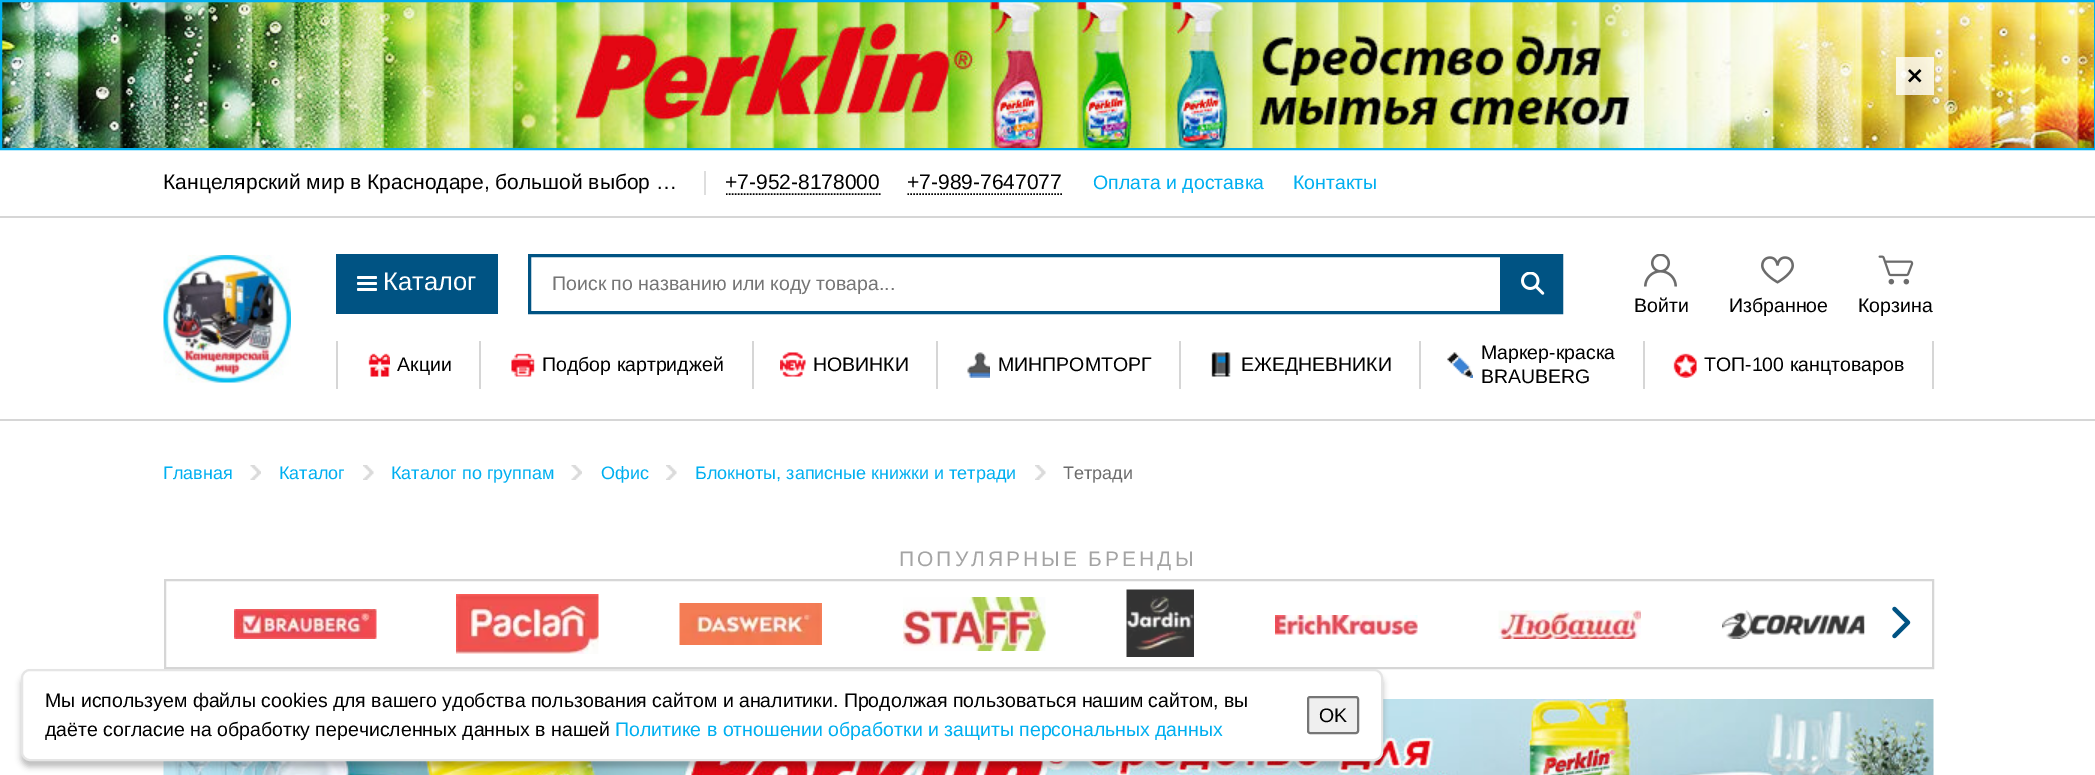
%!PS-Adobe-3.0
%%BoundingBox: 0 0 2095 775
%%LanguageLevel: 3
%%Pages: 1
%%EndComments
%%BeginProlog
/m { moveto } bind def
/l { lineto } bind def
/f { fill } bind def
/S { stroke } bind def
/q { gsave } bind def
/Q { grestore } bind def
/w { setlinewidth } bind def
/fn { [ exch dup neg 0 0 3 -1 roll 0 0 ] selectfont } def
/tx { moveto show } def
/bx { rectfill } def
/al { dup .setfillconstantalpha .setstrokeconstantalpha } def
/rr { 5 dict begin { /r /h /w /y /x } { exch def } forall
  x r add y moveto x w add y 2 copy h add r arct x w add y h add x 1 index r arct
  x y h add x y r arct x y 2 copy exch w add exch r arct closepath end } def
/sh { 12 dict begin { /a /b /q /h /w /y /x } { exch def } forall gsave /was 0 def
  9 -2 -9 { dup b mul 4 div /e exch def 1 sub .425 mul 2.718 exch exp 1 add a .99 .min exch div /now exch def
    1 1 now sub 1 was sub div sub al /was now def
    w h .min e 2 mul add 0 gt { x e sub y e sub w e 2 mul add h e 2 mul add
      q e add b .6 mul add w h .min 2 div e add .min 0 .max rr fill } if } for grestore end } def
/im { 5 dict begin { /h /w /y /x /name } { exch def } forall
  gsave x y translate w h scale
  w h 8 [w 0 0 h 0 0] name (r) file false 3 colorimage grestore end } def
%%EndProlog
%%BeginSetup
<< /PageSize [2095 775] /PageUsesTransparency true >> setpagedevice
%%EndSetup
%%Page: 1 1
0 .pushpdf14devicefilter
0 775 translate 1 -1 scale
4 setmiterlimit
1 setgray
0 0 2095 775 bx
(image0.raw) 2 2 2092 146 im
0 0.686 0.941 setrgbcolor
2 w
1 1 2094 148 rectstroke
0.8 al
1 setgray
1896 57 38 38 bx
1 al
(image1.raw) 1908 69 14 14 im
0.839 setgray
0 216 2095 2 bx
/LiberationSans-Regular 21 fn
0 setgray
(Канцелярский мир в Краснодаре, большой выбор …) 163 189 tx
0.871 setgray
704 171 2 24 bx
0 setgray
(+7-952-8178000) 725 189 tx
1.5 w
[1.5 1.5] 0 setdash
726 194 m 880.5 194 l S
(+7-989-7647077) 907 189 tx
907.5 194 m 1062 194 l S
/LiberationSans-Regular 19.5 fn
0 0.686 0.941 setrgbcolor
(Оплата и доставка) 1093 189 tx
(Контакты) 1293 189 tx
0.839 setgray
0 419 2095 2 bx
(image2.raw) 163 255 128 128 im
0 0.325 0.514 setrgbcolor
336 254 162 60 bx
1 setgray
357 282 20 3 1.5 rr f
357 276 20 3 1.5 rr f
357 288 20 3 1.5 rr f
/LiberationSans-Regular 25.5 fn
(Каталог) 383 290 tx
0 0.325 0.514 setrgbcolor
3 w
[] 0 setdash
529.5 255.5 1032 57 rectstroke
/LiberationSans-Regular 19.5 fn
0.459 setgray
(Поиск по названию или коду товара...) 552 290 tx
0 0.325 0.514 setrgbcolor
1500 257 60 54 bx
(image3.raw) 1521 272 24 23 im
(image4.raw) 1644 254 33 33 im
0 setgray
(Войти) 1634 312 tx
(image5.raw) 1761 256 33 28 im
(Избранное) 1729 312 tx
(image6.raw) 1878 255 36 30 im
(Корзина) 1858 312 tx
0.839 setgray
479 341 2 48 bx
336 341 2 48 bx
(image7.raw) 368 353 22 24 im
0 setgray
(Акции) 397 371 tx
0.839 setgray
752 341 2 48 bx
(image8.raw) 511 353 24 24 im
0 setgray
(Подбор картриджей) 542 371 tx
0.839 setgray
936 341 2 48 bx
(image9.raw) 780 352 26 25 im
0 setgray
(НОВИНКИ) 813 371 tx
0.839 setgray
1179 341 2 48 bx
(image10.raw) 967 352 23 26 im
0 setgray
(МИНПРОМТОРГ) 998 371 tx
0.839 setgray
1419 341 2 48 bx
(image11.raw) 1211 352 20 25 im
0 setgray
(ЕЖЕДНЕВНИКИ) 1241 371 tx
0.839 setgray
1643 341 2 48 bx
(image12.raw) 1447 352 26 26 im
0 setgray
(Маркер-краска) 1481 359 tx
(BRAUBERG) 1481 383 tx
0.839 setgray
1932 341 2 48 bx
(image13.raw) 1673 353 24 25 im
0 setgray
(ТОП-100 канцтоваров) 1704 371 tx
/LiberationSans-Regular 18 fn
0 0.686 0.941 setrgbcolor
(Главная) 163 479 tx
(image14.raw) 250 465 11 15 im
(Каталог) 279 479 tx
(image15.raw) 363 465 11 15 im
(Каталог по группам) 391 479 tx
(image16.raw) 571 465 11 15 im
(Офис) 601 479 tx
(image17.raw) 666 465 11 15 im
(Блокноты, записные книжки и тетради) 695 479 tx
(image15.raw) 1035 465 11 15 im
0.424 setgray
(Тетради) 1063 479 tx
/LiberationSans-Regular 21 fn
0.643 setgray
899 566 m 3 0 (ПОПУЛЯРНЫЕ БРЕНДЫ) ashow
0.839 setgray
2 w
165 580 1768 88 rectstroke
(image18.raw) 234 609 143 30 im
(image19.raw) 456 594 143 60 im
(image20.raw) 679 603 143 42 im
(image21.raw) 903 597 143 54 im
(image22.raw) 1126 589 68 68 im
(image23.raw) 1275 615 143 20 im
(image24.raw) 1498 610 143 29 im
(image25.raw) 1722 610 143 29 im
(image26.raw) 1892 606 19 33 im
(image27.raw) 163 699 1771 76 im
0 setgray
21 675 1362 92 9 3 0.25 sh
1 setgray
22 670 1360 90 8 rr q f Q
0.898 setgray
S
/LiberationSans-Regular 19.5 fn
0 setgray
(Мы используем файлы cookies для вашего удобства пользования сайтом и аналитики. Продолжая пользоваться нашим сайтом, вы) 45 707 tx
(даёте согласие на обработку перечисленных данных в нашей) 45 736 tx
0 0.686 0.941 setrgbcolor
(Политике в отношении обработки и защиты персональных данных) 615 736 tx
0.937 setgray
1308 697 50 36 2 rr q f Q
0.463 setgray
S
0 setgray
(OK) 1319 722 tx
.poppdf14devicefilter showpage
%%EOF
